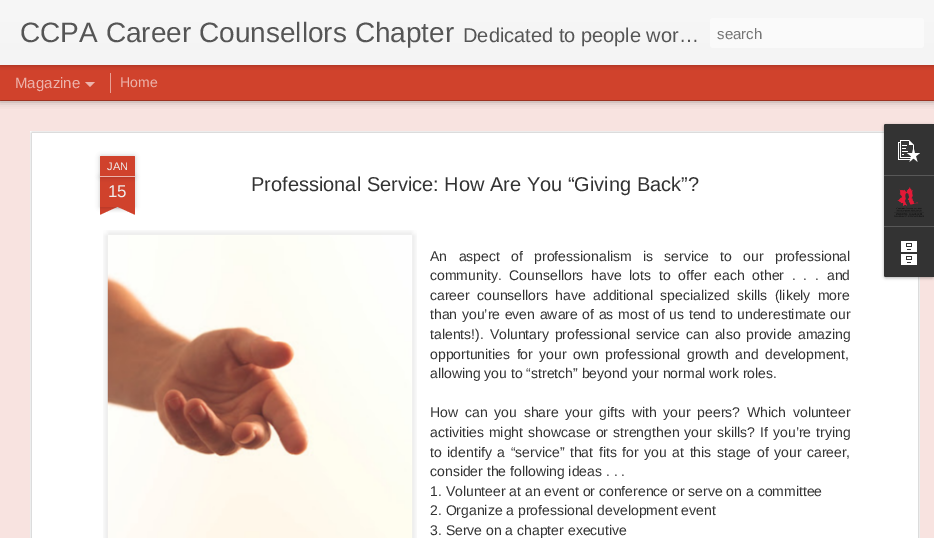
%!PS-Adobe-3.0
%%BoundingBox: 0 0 934 538
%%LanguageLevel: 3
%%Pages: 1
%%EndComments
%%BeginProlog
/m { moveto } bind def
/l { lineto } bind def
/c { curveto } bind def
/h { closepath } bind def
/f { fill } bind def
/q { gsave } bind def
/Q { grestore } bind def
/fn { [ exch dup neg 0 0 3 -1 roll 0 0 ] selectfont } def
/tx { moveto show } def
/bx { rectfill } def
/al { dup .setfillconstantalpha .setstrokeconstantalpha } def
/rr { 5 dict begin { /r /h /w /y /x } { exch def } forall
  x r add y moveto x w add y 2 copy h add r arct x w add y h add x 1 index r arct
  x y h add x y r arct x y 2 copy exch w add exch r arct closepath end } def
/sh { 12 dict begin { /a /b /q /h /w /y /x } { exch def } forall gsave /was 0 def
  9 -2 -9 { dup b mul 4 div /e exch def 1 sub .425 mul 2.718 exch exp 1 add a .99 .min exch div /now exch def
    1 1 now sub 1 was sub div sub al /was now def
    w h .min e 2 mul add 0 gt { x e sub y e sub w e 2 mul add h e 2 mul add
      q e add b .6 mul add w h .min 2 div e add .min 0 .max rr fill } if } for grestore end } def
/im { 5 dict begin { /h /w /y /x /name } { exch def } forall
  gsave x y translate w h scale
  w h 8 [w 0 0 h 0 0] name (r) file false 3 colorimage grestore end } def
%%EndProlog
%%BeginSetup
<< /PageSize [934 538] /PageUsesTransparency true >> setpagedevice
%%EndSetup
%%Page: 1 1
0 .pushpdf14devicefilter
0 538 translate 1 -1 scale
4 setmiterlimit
0.816 0.259 0.173 setrgbcolor
0 0 934 538 bx
0.973 0.89 0.878 setrgbcolor
0 101 934 437 bx
0 setgray
0 65 934 35 0 4 0.5 sh
0.816 0.259 0.173 setrgbcolor
0 65 934 35 bx
0.91 0.631 0.588 setrgbcolor
110 73 1 20 bx
0 setgray
0 0 934 65 0 2.5 0.3 sh
q 0 0 m 934 0 l 934 65 l 0 65 l h clip newpath
<< /ShadingType 2 /ColorSpace /DeviceRGB /Coords [0 0 0 65] /Extend [true true] /Function << /FunctionType 2 /Domain [0 1] /C0 [0.969 0.969 0.969] /C1 [0.957 0.957 0.957] /N 1 >> >> shfill Q
/LiberationSans-Regular 28 fn
0.333 setgray
(CCPA Career Counsellors Chapter) 20 42 tx
/LiberationSans-Regular 20 fn
(Dedicated to people wor…) 463 42 tx
0.98 setgray
710 18 214 30 3 rr f
/LiberationSans-Regular 15 fn
0.459 setgray
(search) 717 39 tx
0.925 0.702 0.671 setrgbcolor
(Magazine) 15 88 tx
85 82 m 95 82 l 90 87 l h f
/LiberationSans-Regular 14 fn
(Home) 120 87 tx
1 setgray
30 131 890 407 bx
(image0.raw) 30 131 890 407 im
0 setgray
100 177 35 30 0 2.5 0.2 sh
0.816 0.259 0.173 setrgbcolor
100 177 35 30 bx
0 setgray
100 156 35 21 1 2.5 0.2 sh
0.816 0.259 0.173 setrgbcolor
101 156 m 134 156 l 134.5 156 135 156.5 135 157 c 135 177 l 100 177 l 100 157 l 100 156.5 100.5 156 101 156 c h f
0.925 0.702 0.671 setrgbcolor
100 176 35 1 bx
/LiberationSans-Regular 11 fn
0.933 setgray
(JAN) 107 170 tx
/LiberationSans-Regular 17 fn
(15) 108 197 tx
q
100 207 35 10 rectclip
0 setgray
91 197 50 10 0 2.5 0.2 sh
Q
q
100 207 35 10 rectclip
0.816 0.259 0.173 setrgbcolor
91 208 m 137 187 l 141 196 l 95 217 l h f
Q
q
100 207 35 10 rectclip
0 setgray
94 197 50 10 0 2.5 0.2 sh
Q
q
100 207 35 10 rectclip
0.816 0.259 0.173 setrgbcolor
98 187 m 144 208 l 140 217 l 94 196 l h f
Q
/LiberationSans-Regular 20 fn
0.2 setgray
(Professional Service: How Are You “Giving Back”?) 251 191 tx
(image1.raw) 103 230 314 308 im
(image2.raw) 107 234 306 304 im
/LiberationSans-Regular 14 fn
430 261 m 7.5 0 32 (An aspect of professionalism is service to our professional) widthshow
430 280 m 3.9 0 32 (community. Counsellors have lots to offer each other . . . and) widthshow
430 300 m 3.5 0 32 (career counsellors have additional specialized skills \(likely more) widthshow
430 319 m 0.75 0 32 (than you’re even aware of as most of us tend to underestimate our) widthshow
430 339 m 2 0 32 (talents!\). Voluntary professional service can also provide amazing) widthshow
430 359 m 2.5 0 32 (opportunities for your own professional growth and development,) widthshow
(allowing you to “stretch” beyond your normal work roles.) 430 378 tx
430 417 m 2.9 0 32 (How can you share your gifts with your peers? Which volunteer) widthshow
430 437 m 1.25 0 32 (activities might showcase or strengthen your skills? If you’re trying) widthshow
430 457 m 1.7 0 32 (to identify a “service” that fits for you at this stage of your career,) widthshow
(consider the following ideas . . .) 430 476 tx
(1. Volunteer at an event or conference or serve on a committee) 430 496 tx
(2. Organize a professional development event) 430 515 tx
(3. Serve on a chapter executive) 430 535 tx
0 setgray
884 125 50 153 2 1.5 0.3 sh
0.2 setgray
886 124 m 934 124 l 934 277 l 886 277 l 885 277 884 276 884 275 c 884 126 l 884 125 885 124 886 124 c h f
886 124 m 934 124 l 934 175 l 884 175 l 884 126 l 884 125 885 124 886 124 c h f
(image3.raw) 898 140 22 22 im
0.345 setgray
884 175 50 1 bx
(image4.raw) 894 187 30 30 im
0.2 setgray
884 226 m 934 226 l 934 277 l 886 277 l 885 277 884 276 884 275 c h f
0.345 setgray
884 226 50 1 bx
(image5.raw) 901 241 16 24 im
.poppdf14devicefilter showpage
%%EOF
